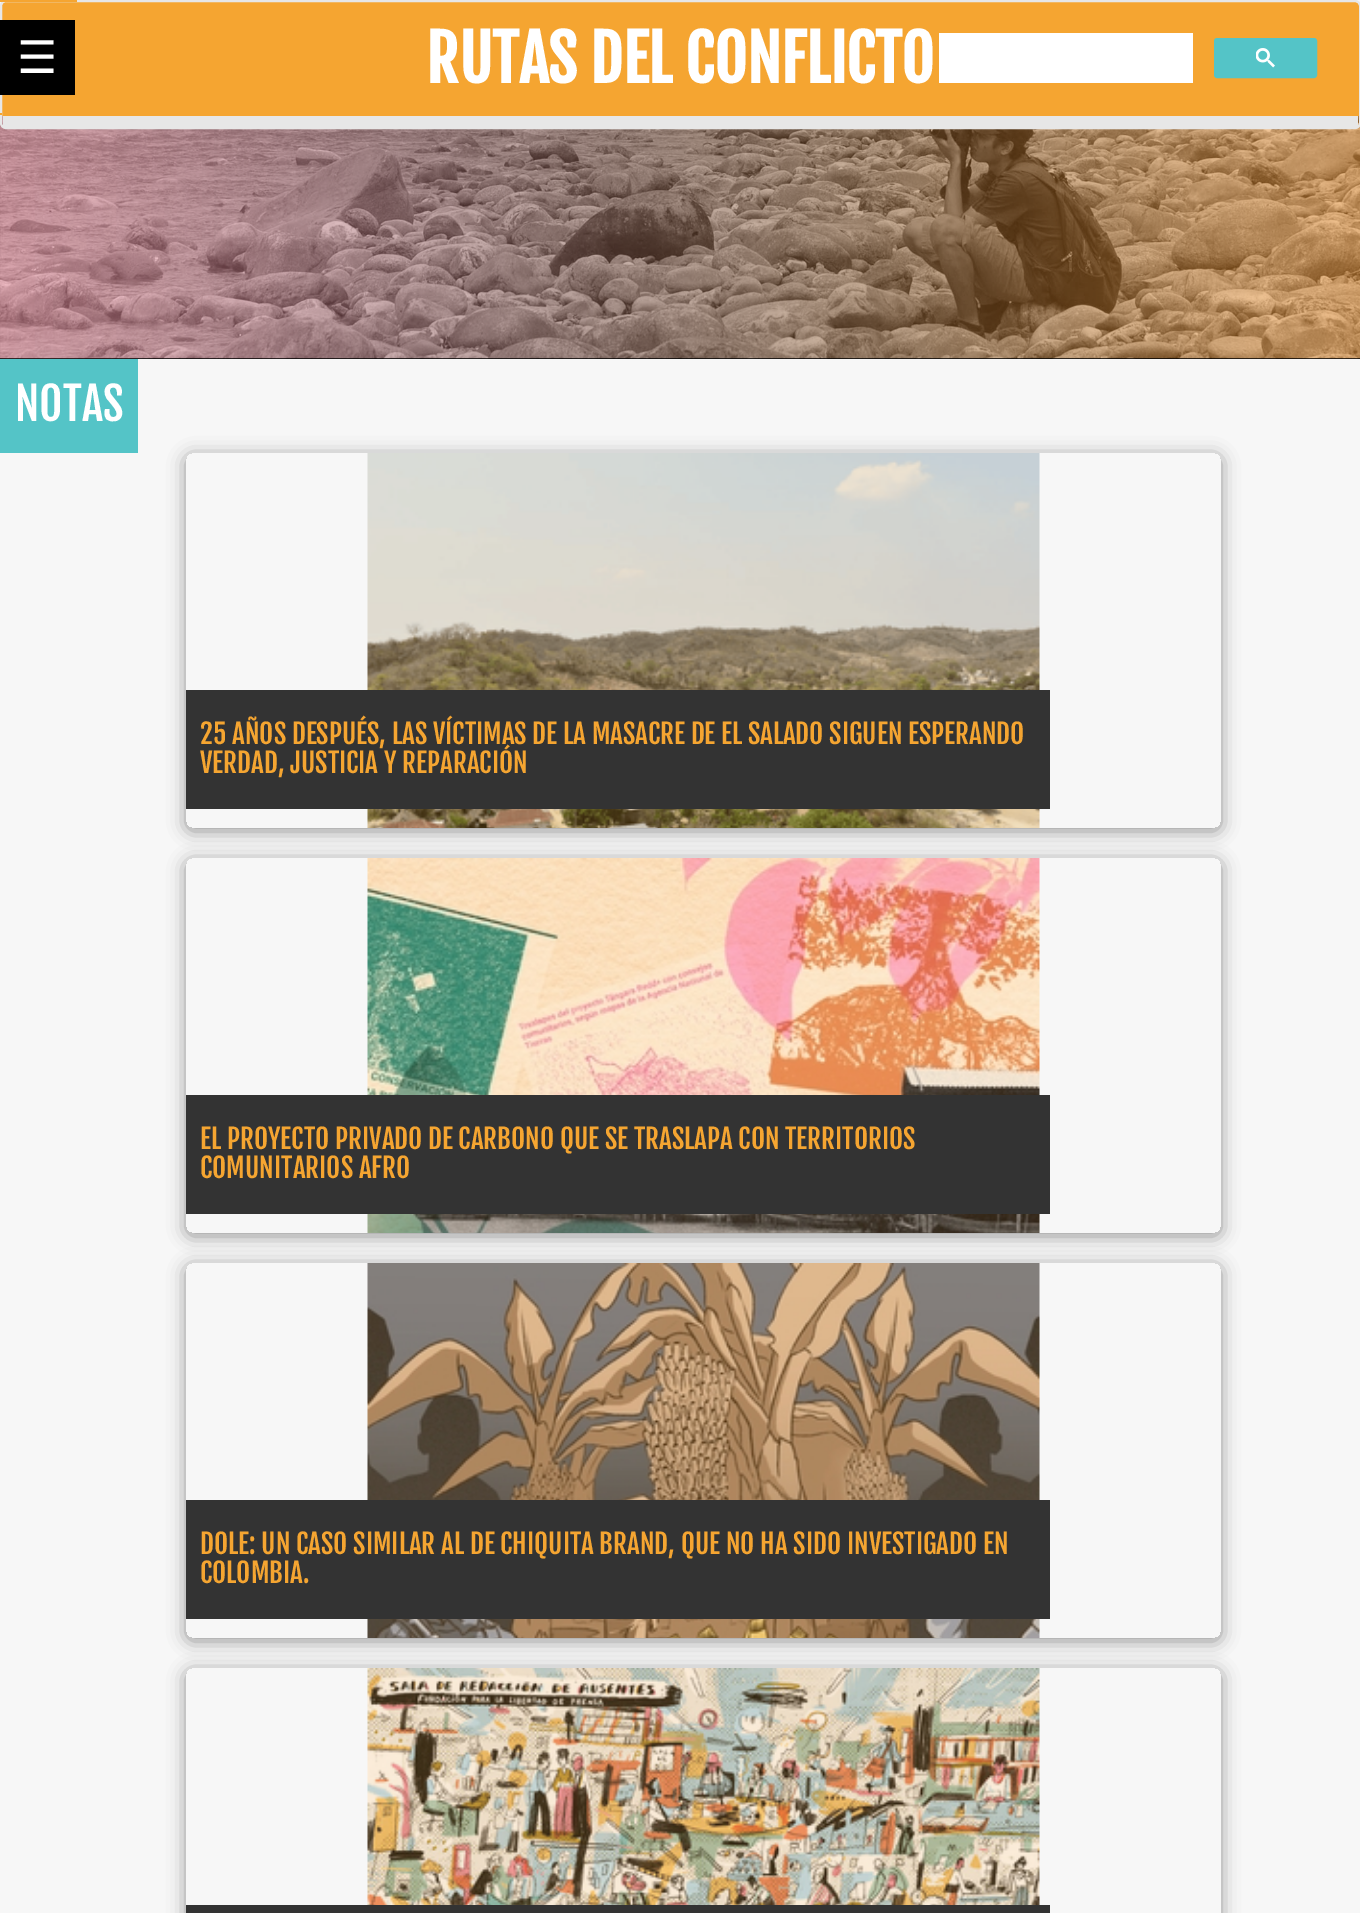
%!PS-Adobe-3.0
%%BoundingBox: 0 0 1360 1913
%%LanguageLevel: 3
%%Pages: 1
%%EndComments
%%BeginProlog
/m { moveto } bind def
/l { lineto } bind def
/c { curveto } bind def
/h { closepath } bind def
/f { fill } bind def
/S { stroke } bind def
/q { gsave } bind def
/Q { grestore } bind def
/w { setlinewidth } bind def
/fn { [ exch dup neg 0 0 3 -1 roll 0 0 ] selectfont } def
/tx { moveto show } def
/bx { rectfill } def
/al { dup .setfillconstantalpha .setstrokeconstantalpha } def
/rr { 5 dict begin { /r /h /w /y /x } { exch def } forall
  x r add y moveto x w add y 2 copy h add r arct x w add y h add x 1 index r arct
  x y h add x y r arct x y 2 copy exch w add exch r arct closepath end } def
/sh { 12 dict begin { /a /b /q /h /w /y /x } { exch def } forall gsave /was 0 def
  9 -2 -9 { dup b mul 4 div /e exch def 1 sub .425 mul 2.718 exch exp 1 add a .99 .min exch div /now exch def
    1 1 now sub 1 was sub div sub al /was now def
    w h .min e 2 mul add 0 gt { x e sub y e sub w e 2 mul add h e 2 mul add
      q e add b .6 mul add w h .min 2 div e add .min 0 .max rr fill } if } for grestore end } def
/im { 5 dict begin { /h /w /y /x /name } { exch def } forall
  gsave x y translate w h scale
  w h 8 [w 0 0 h 0 0] name (r) file false 3 colorimage grestore end } def
%%EndProlog
%%BeginSetup
<< /PageSize [1360 1913] /PageUsesTransparency true >> setpagedevice
%%EndSetup
%%Page: 1 1
0 .pushpdf14devicefilter
0 1913 translate 1 -1 scale
4 setmiterlimit
0.969 setgray
0 0 1360 1913 bx
0.961 0.647 0.192 setrgbcolor
6 2 m 1354 2 l 1357 2 1359 4 1359 6 c 1359 116 l 2 116 l 2 6 l 2 4 4 2 6 2 c h f
0 setgray
0 123 1360 236 bx
(image1.raw) 0 116 1360 243 im
0.906 setgray
2 w
1 1 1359 127 5 rr S
0.961 0.647 0.192 setrgbcolor
0 0 77 2 bx
0 113 2 2 bx
0 setgray
0 20 75 75 bx
/DejaVuSans-Regular 45 fn
1 setgray
(☰) 17 73 tx
0.906 setgray
3 116 1355 11 bx
/FjallaOne-Bold 63 fn
1 setgray
(RUTAS DEL CONFLICTO) 426 83 tx
939 33 254 50 bx
0.329 0.769 0.78 setrgbcolor
1215 39 101 38 2 rr q f Q
S
(image0.raw) 1256 48 19 20 im
0 359 138 94 bx
/FjallaOne-Regular 45 fn
1 setgray
(NOTAS) 15 421 tx
q
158 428 m 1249 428 l 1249 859 l 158 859 l h 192 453 m 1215 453 l 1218.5 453 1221 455.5 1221 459 c 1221 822 l 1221 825.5 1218.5 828 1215 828 c 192 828 l 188.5 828 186 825.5 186 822 c 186 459 l 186 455.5 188.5 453 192 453 c h eoclip newpath
0 setgray
186 456 1035 375 6 9 0.4 sh
Q
(image2.raw) 367 453 673 375 im
0.2 setgray
186 690 864 119 bx
/FjallaOne-Regular 27 fn
0.961 0.647 0.192 setrgbcolor
(25 AÑOS DESPUÉS, LAS VÍCTIMAS DE LA MASACRE DE EL SALADO SIGUEN ESPERANDO) 200 744 tx
(VERDAD, JUSTICIA Y REPARACIÓN) 200 773 tx
q
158 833 m 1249 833 l 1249 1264 l 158 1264 l h 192 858 m 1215 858 l 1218.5 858 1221 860.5 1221 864 c 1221 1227 l 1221 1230.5 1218.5 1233 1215 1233 c 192 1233 l 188.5 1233 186 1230.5 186 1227 c 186 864 l 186 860.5 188.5 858 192 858 c h eoclip newpath
0 setgray
186 861 1035 375 6 9 0.4 sh
Q
(image3.raw) 367 858 673 375 im
0.2 setgray
186 1095 864 119 bx
0.961 0.647 0.192 setrgbcolor
(EL PROYECTO PRIVADO DE CARBONO QUE SE TRASLAPA CON TERRITORIOS) 200 1149 tx
(COMUNITARIOS AFRO) 200 1178 tx
q
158 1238 m 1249 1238 l 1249 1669 l 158 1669 l h 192 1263 m 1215 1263 l 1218.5 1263 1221 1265.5 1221 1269 c 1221 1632 l 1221 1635.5 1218.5 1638 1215 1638 c 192 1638 l 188.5 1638 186 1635.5 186 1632 c 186 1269 l 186 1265.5 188.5 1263 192 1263 c h eoclip newpath
0 setgray
186 1266 1035 375 6 9 0.4 sh
Q
(image4.raw) 367 1263 673 375 im
0.2 setgray
186 1500 864 119 bx
0.961 0.647 0.192 setrgbcolor
(DOLE: UN CASO SIMILAR AL DE CHIQUITA BRAND, QUE NO HA SIDO INVESTIGADO EN) 200 1554 tx
(COLOMBIA.) 200 1583 tx
q
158 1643 m 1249 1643 l 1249 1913 l 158 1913 l h 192 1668 m 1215 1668 l 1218.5 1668 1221 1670.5 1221 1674 c 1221 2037 l 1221 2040.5 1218.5 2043 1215 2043 c 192 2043 l 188.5 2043 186 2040.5 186 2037 c 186 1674 l 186 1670.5 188.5 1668 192 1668 c h eoclip newpath
0 setgray
186 1671 1035 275 6 9 0.4 sh
Q
(image5.raw) 367 1668 673 237 im
0.2 setgray
186 1905 864 8 bx
.poppdf14devicefilter showpage
%%EOF
